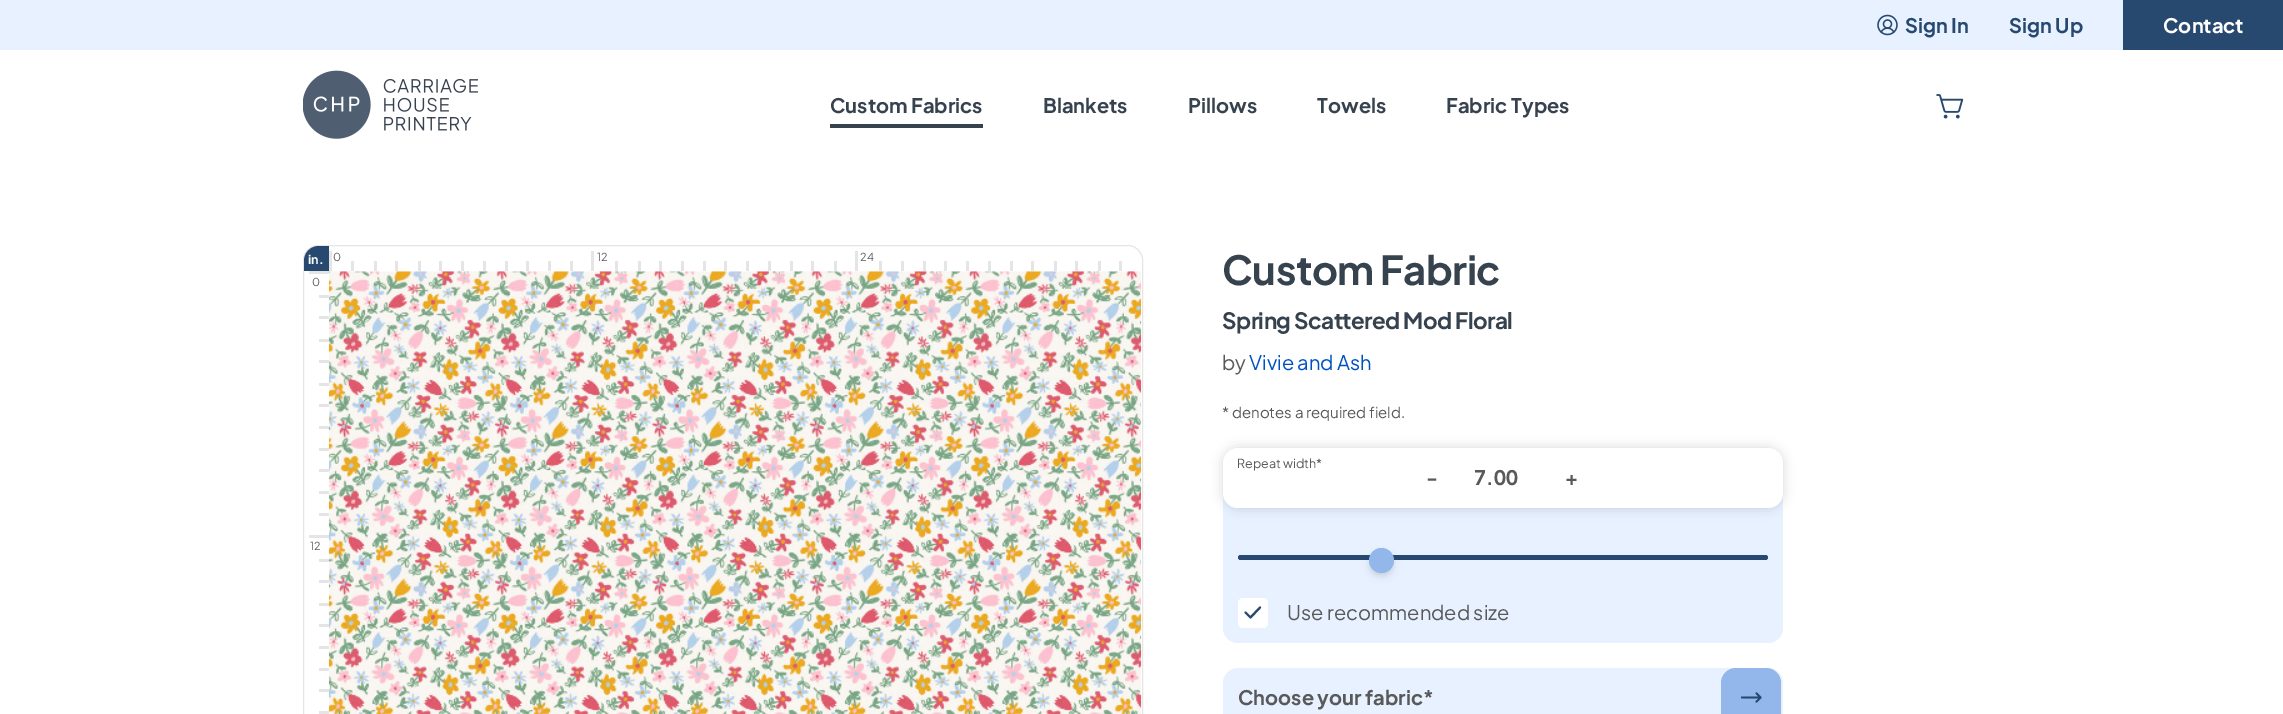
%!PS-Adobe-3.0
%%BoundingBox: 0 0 2283 714
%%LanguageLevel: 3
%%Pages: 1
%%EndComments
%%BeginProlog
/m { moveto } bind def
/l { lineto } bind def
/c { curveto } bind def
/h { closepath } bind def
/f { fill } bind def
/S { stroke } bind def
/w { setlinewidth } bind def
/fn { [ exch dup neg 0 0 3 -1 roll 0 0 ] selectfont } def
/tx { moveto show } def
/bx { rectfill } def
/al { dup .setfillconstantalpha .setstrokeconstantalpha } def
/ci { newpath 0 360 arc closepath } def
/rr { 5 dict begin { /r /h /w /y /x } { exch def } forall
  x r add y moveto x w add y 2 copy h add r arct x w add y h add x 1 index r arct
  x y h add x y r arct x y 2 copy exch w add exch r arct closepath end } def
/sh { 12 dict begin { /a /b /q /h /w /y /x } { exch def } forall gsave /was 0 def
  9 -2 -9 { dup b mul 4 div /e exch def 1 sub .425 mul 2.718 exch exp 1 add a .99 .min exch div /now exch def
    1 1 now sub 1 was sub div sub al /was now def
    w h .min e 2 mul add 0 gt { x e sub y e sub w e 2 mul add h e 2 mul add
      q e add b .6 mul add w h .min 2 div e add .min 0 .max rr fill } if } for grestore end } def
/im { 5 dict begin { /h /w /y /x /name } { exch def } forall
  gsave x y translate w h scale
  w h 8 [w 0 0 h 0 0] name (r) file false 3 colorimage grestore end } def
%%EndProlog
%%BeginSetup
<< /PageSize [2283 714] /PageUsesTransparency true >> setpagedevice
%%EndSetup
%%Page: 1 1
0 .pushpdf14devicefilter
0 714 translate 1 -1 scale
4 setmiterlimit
1 setgray
0 0 2283 714 bx
0.906 0.945 1 setrgbcolor
0 0 2123 50 bx
(image0.raw) 1877 14 21 22 im
/PlusJakartaSans-Bold 20 fn
0.153 0.286 0.435 setrgbcolor
(Sign In) 1905 33 tx
(Sign Up) 2009 33 tx
2123 0 160 50 bx
1 setgray
(Contact) 2163 33 tx
(image1.raw) 303 70 175 69 im
0.216 0.259 0.31 setrgbcolor
(Custom Fabrics) 830 113 tx
830 124 153 4 bx
(Blankets) 1043 113 tx
(Pillows) 1188 113 tx
(Towels) 1317 113 tx
(Fabric Types) 1446 113 tx
(image2.raw) 1936 94 28 25 im
0.898 setgray
303.5 245.5 839 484 14.5 rr S
0.153 0.286 0.435 setrgbcolor
319 246 m 329 246 l 329 271 l 304 271 l 304 261 l 304 252.5 310.5 246 319 246 c h f
/PlusJakartaSans-Bold 12.5 fn
1 setgray
(in.) 308 264 tx
0.898 setgray
329 251 3 20 bx
/PlusJakartaSans-Regular 11 fn
0.349 setgray
(0) 333 261 tx
0.898 setgray
591 251 3 20 bx
0.349 setgray
(12) 597 261 tx
0.898 setgray
855 251 3 20 bx
0.349 setgray
(24) 860 261 tx
0.898 setgray
351 261 3 10 bx
374 261 3 10 bx
395 261 3 10 bx
418 261 3 10 bx
439 261 3 10 bx
461 261 3 10 bx
483 261 3 10 bx
505 261 3 10 bx
526 261 3 10 bx
548 261 3 10 bx
570 261 3 10 bx
615 261 3 10 bx
638 261 3 10 bx
659 261 3 10 bx
681 261 3 10 bx
703 261 3 10 bx
724 261 3 10 bx
746 261 3 10 bx
768 261 3 10 bx
790 261 3 10 bx
811 261 3 10 bx
834 261 3 10 bx
879 261 3 10 bx
901 261 3 10 bx
923 261 3 10 bx
944 261 3 10 bx
966 261 3 10 bx
988 261 3 10 bx
1010 261 3 10 bx
1031 261 3 10 bx
1054 261 3 10 bx
1075 261 3 10 bx
1098 261 3 10 bx
1119 261 3 10 bx
309 271 20 3 bx
0.349 setgray
(0) 312 286 tx
0.898 setgray
319 295 10 3 bx
319 316 10 3 bx
319 339 10 3 bx
319 360 10 3 bx
319 383 10 3 bx
319 404 10 3 bx
319 426 10 3 bx
319 448 10 3 bx
319 469 10 3 bx
319 491 10 3 bx
319 513 10 3 bx
309 535 20 3 bx
0.349 setgray
(12) 310 550 tx
0.898 setgray
319 559 10 3 bx
319 580 10 3 bx
319 603 10 3 bx
319 624 10 3 bx
319 646 10 3 bx
319 668 10 3 bx
319 689 10 3 bx
319 711 10 3 bx
(image3.raw) 328 271 814 443 im
/PlusJakartaSans-Bold 40 fn
0.216 0.259 0.31 setrgbcolor
1222 285 m -0.5 0 (Custom Fabric) ashow
/PlusJakartaSans-Bold 22.5 fn
1222 329 m -0.55 0 (Spring Scattered Mod Floral) ashow
/PlusJakartaSans-Regular 20 fn
0.349 setgray
(by) 1222 370 tx
0 0.318 0.761 setrgbcolor
(Vivie and Ash) 1249 370 tx
/PlusJakartaSans-Regular 15 fn
0.349 setgray
(* denotes a required field.) 1222 418 tx
0.906 0.945 1 setrgbcolor
1223 448 560 195 15 rr f
0 setgray
1223 448 560 60 15 6 0.15 sh
1 setgray
1223 448 560 60 15 rr f
/PlusJakartaSans-Regular 12.5 fn
0.349 setgray
(Repeat width*) 1237 468 tx
/PlusJakartaSans-Bold 20 fn
(-) 1426 485 tx
/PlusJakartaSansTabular-Bold 20 fn
(7.00) 1474 485 tx
/PlusJakartaSans-Bold 20 fn
(+) 1565 485 tx
1 setgray
1238 555 530 5 bx
0.153 0.286 0.435 setrgbcolor
1238 555 530 5 2.5 rr f
0 setgray
1371 553 20 20 10 2.5 0.1 sh
1370 554 23 22 11 4 0.1 sh
0.576 0.718 0.918 setrgbcolor
1381.5 560.5 12.5 ci f
1 setgray
1238 598 30 30 5 rr f
0.153 0.286 0.435 setrgbcolor
2.1 w
1 setlinecap
1 setlinejoin
1260 607.5 m 1250.5 617.5 l 1245.5 612.5 l S
/PlusJakartaSans-Regular 20 fn
0.349 setgray
(Use recommended size) 1287 620 tx
0.906 0.945 1 setrgbcolor
1223 668 560 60 15 rr f
/PlusJakartaSans-Bold 20 fn
0.349 setgray
(Choose your fabric*) 1238 705 tx
0.576 0.718 0.918 setrgbcolor
1721 668 60 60 15 rr f
(image4.raw) 1740 692 22 11 im
.poppdf14devicefilter showpage
%%EOF
